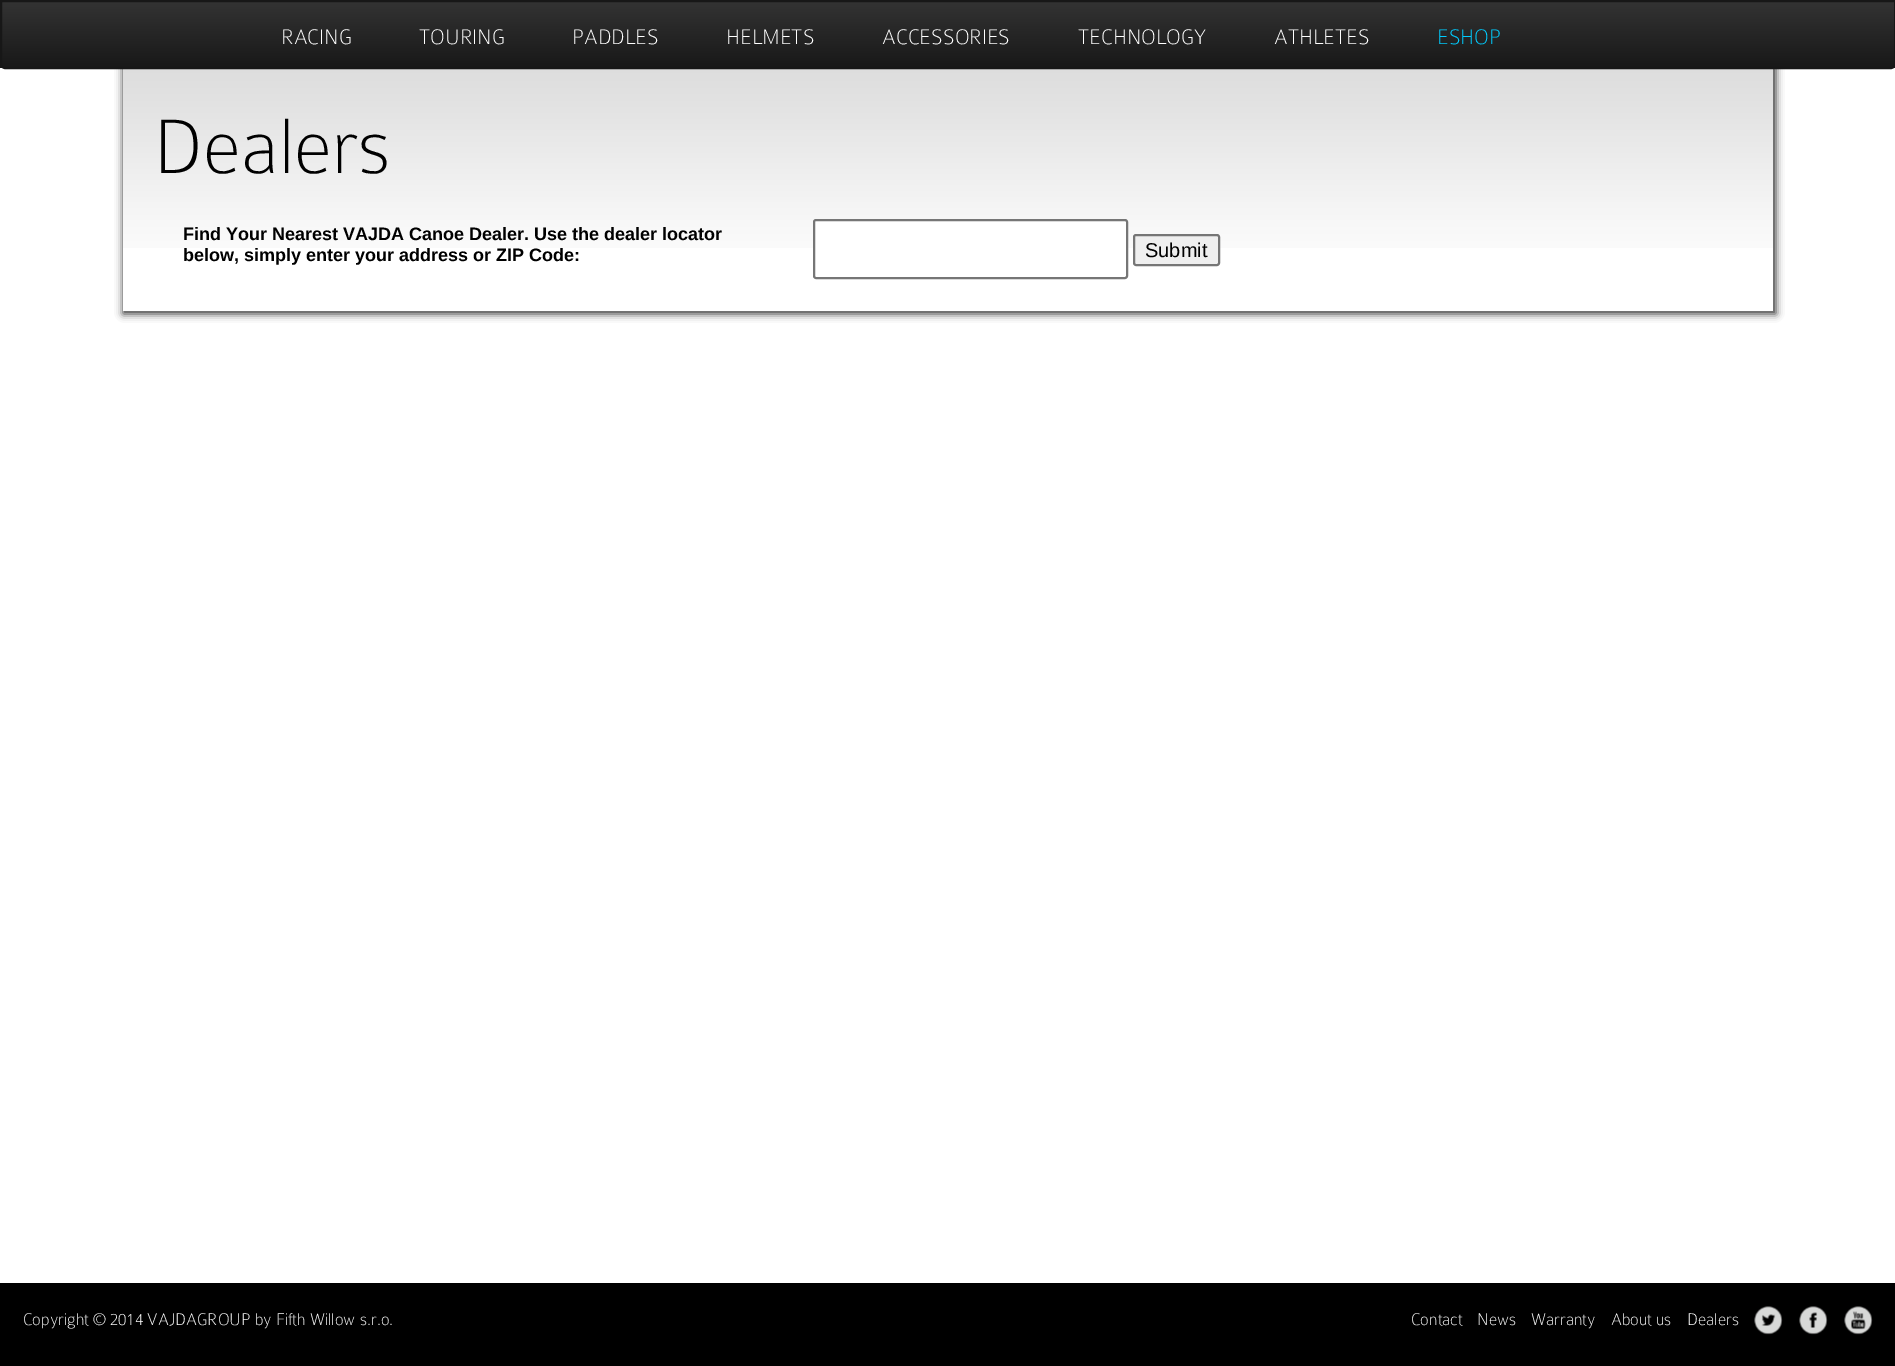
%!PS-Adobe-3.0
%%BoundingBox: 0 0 1895 1366
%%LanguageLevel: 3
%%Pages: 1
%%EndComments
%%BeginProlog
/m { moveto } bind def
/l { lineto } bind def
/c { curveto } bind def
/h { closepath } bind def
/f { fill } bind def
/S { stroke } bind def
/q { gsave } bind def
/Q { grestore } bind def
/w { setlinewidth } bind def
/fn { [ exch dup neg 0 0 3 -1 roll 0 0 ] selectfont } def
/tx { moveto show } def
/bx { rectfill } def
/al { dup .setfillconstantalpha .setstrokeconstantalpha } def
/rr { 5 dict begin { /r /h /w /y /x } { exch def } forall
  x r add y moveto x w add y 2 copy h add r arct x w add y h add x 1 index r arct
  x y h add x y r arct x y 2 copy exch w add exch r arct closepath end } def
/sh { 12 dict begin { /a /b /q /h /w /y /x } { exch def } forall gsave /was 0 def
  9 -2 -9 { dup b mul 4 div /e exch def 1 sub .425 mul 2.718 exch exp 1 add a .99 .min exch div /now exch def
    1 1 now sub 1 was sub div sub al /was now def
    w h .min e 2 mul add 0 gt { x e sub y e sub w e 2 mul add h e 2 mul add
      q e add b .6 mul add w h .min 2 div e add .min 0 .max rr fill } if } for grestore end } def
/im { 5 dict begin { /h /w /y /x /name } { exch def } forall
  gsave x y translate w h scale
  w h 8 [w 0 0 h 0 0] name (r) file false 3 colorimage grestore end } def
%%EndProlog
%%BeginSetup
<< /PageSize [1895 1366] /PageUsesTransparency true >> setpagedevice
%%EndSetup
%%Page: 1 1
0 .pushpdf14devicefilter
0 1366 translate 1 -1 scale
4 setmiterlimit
1 setgray
0 0 1895 1366 bx
(image0.raw) 123 69 1650 179 im
q
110 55 m 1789 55 l 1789 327 l 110 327 l h 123 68 m 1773 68 l 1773 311 l 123 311 l h eoclip newpath
0.2 setgray
123 68 1653 246 0 4 1 sh
Q
q
0 0 m 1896 0 l 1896 64 l 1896 67 1894 69 1891 69 c 5 69 l 2 69 0 67 0 64 c h clip newpath
q 0 2 m 1895 2 l 1895 68 l 0 68 l h clip newpath
<< /ShadingType 2 /ColorSpace /DeviceRGB /Coords [948 1.5 948 68] /Extend [true true] /Function << /FunctionType 2 /Domain [0 1] /C0 [0.2 0.2 0.2] /C1 [0.094 0.094 0.094] /N 1 >> >> shfill Q
Q
0.09 setgray
2 w
1 1 m 1895 1 l 1895 64 l 1895 66 1893 68 1891 68 c 5 68 l 3 68 1 66 1 64 c h S
/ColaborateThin-Thin 22.5 fn
1 setgray
(RACING) 281 44 tx
(TOURING) 419 44 tx
(PADDLES) 572 44 tx
(HELMETS) 726 44 tx
(ACCESSORIES) 882 44 tx
(TECHNOLOGY) 1078 44 tx
(ATHLETES) 1274 44 tx
0 0.8 1 setrgbcolor
(ESHOP) 1437 44 tx
/ColaborateThin-Thin 82.5 fn
0 setgray
(Dealers) 153 173 tx
/LiberationSans-Bold 18 fn
(Find Your Nearest VAJDA Canoe Dealer. Use the dealer locator) 183 240 tx
(below, simply enter your address or ZIP Code:) 183 261 tx
1 setgray
814 220 313 58 2 rr q f Q
0.463 setgray
S
0.937 setgray
1134 235 85 30 2 rr q f Q
0.463 setgray
S
/LiberationSans-Regular 20 fn
0 setgray
(Submit) 1145 257 tx
0 1283 1895 83 bx
/ColaborateThin-Thin 18 fn
1 setgray
(Copyright © 2014 VAJDAGROUP by Fifth Willow s.r.o.) 23 1325 tx
(Contact) 1411 1325 tx
(News) 1477 1325 tx
(Warranty) 1531 1325 tx
(About us) 1611 1325 tx
(Dealers) 1687 1325 tx
(image1.raw) 1754 1306 29 29 im
(image2.raw) 1799 1306 29 29 im
(image3.raw) 1844 1306 29 29 im
.poppdf14devicefilter showpage
%%EOF
